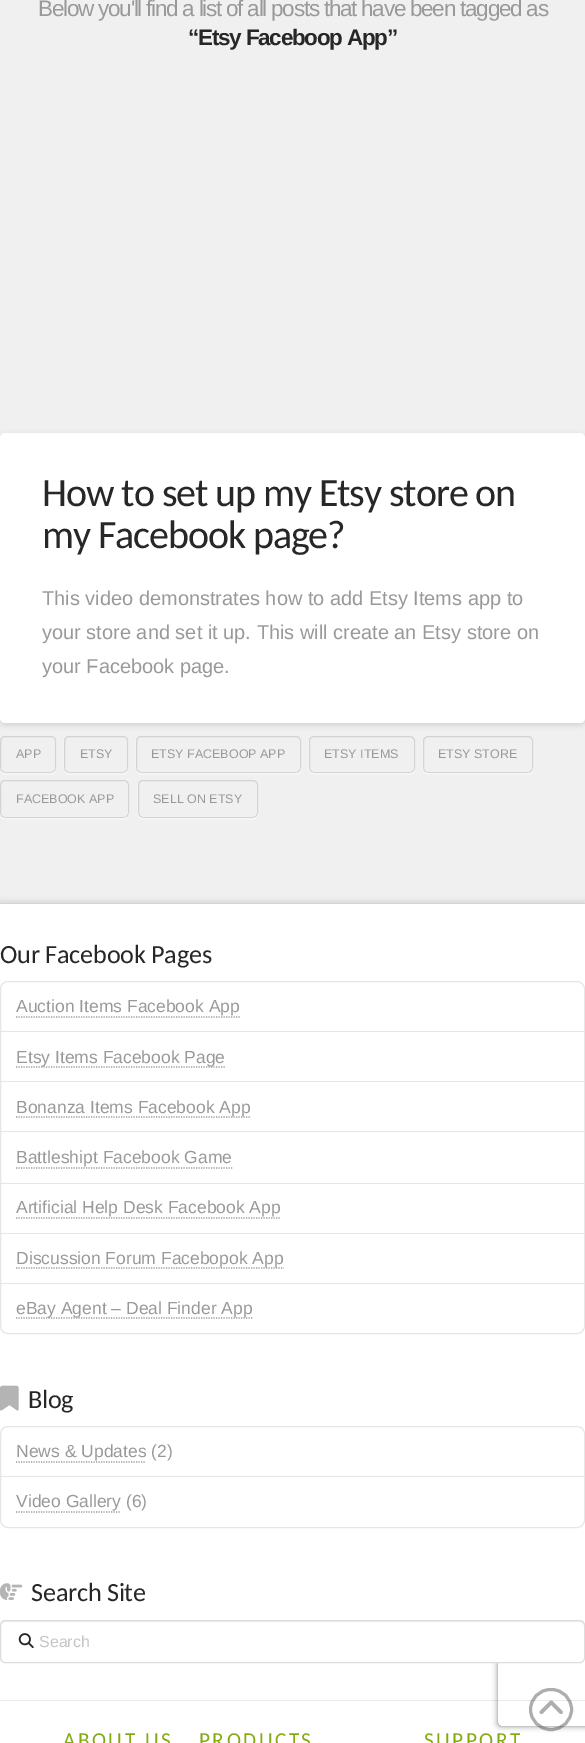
%!PS-Adobe-3.0
%%BoundingBox: 0 0 585 1743
%%LanguageLevel: 3
%%Pages: 1
%%EndComments
%%BeginProlog
/m { moveto } bind def
/l { lineto } bind def
/c { curveto } bind def
/h { closepath } bind def
/f { fill } bind def
/S { stroke } bind def
/q { gsave } bind def
/Q { grestore } bind def
/w { setlinewidth } bind def
/fn { [ exch dup neg 0 0 3 -1 roll 0 0 ] selectfont } def
/tx { moveto show } def
/bx { rectfill } def
/al { dup .setfillconstantalpha .setstrokeconstantalpha } def
/rr { 5 dict begin { /r /h /w /y /x } { exch def } forall
  x r add y moveto x w add y 2 copy h add r arct x w add y h add x 1 index r arct
  x y h add x y r arct x y 2 copy exch w add exch r arct closepath end } def
/sh { 12 dict begin { /a /b /q /h /w /y /x } { exch def } forall gsave /was 0 def
  9 -2 -9 { dup b mul 4 div /e exch def 1 sub .425 mul 2.718 exch exp 1 add a .99 .min exch div /now exch def
    1 1 now sub 1 was sub div sub al /was now def
    w h .min e 2 mul add 0 gt { x e sub y e sub w e 2 mul add h e 2 mul add
      q e add b .6 mul add w h .min 2 div e add .min 0 .max rr fill } if } for grestore end } def
/im { 5 dict begin { /h /w /y /x /name } { exch def } forall
  gsave x y translate w h scale
  w h 8 [w 0 0 h 0 0] name (r) file false 3 colorimage grestore end } def
%%EndProlog
%%BeginSetup
<< /PageSize [585 1743] /PageUsesTransparency true >> setpagedevice
%%EndSetup
%%Page: 1 1
0 .pushpdf14devicefilter
0 1743 translate 1 -1 scale
4 setmiterlimit
0.941 setgray
0 0 585 1743 bx
/LiberationSans-Regular 22.5 fn
0.6 setgray
38 16 m -1.25 0 (Below you'll find a list of all posts that have been tagged as) ashow
/LiberationSans-Bold 22.5 fn
0.153 setgray
188 45 m -1.25 0 (“Etsy Faceboop App”) ashow
0 setgray
0 435 585 290 5 3 0.13 sh
1 setgray
0 433 585 290 5 rr f
/Carlito-Regular 40 fn
0.153 setgray
42 506 m -1.1 0 (How to set up my Etsy store on) ashow
42 548 m -1.1 0 (my Facebook page?) ashow
/LiberationSans-Regular 20 fn
0.6 setgray
(This video demonstrates how to add Etsy Items app to) 42 605 tx
(your store and set it up. This will create an Etsy store on) 42 639 tx
(your Facebook page.) 42 673 tx
q
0 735 m 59 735 l 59 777 l 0 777 l h 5 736 m 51 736 l 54 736 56 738 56 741 c 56 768 l 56 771 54 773 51 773 c 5 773 l 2 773 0 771 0 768 c 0 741 l 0 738 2 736 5 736 c h eoclip newpath
1 setgray
0 738 56 36 5 0.5 0.95 sh
Q
0.12 al
0 setgray
0.5 736.5 55 36 4.5 rr S
/LiberationSans-Regular 12.5 fn
1 al
0.6 setgray
(APP) 16 758 tx
q
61 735 m 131 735 l 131 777 l 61 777 l h 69 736 m 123 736 l 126 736 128 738 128 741 c 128 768 l 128 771 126 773 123 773 c 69 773 l 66 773 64 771 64 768 c 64 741 l 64 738 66 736 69 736 c h eoclip newpath
1 setgray
64 738 64 36 5 0.5 0.95 sh
Q
0.12 al
0 setgray
64.5 736.5 63 36 4.5 rr S
1 al
0.6 setgray
(ETSY) 80 758 tx
q
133 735 m 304 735 l 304 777 l 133 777 l h 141 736 m 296 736 l 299 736 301 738 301 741 c 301 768 l 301 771 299 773 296 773 c 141 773 l 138 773 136 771 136 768 c 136 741 l 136 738 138 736 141 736 c h eoclip newpath
1 setgray
136 738 165 36 5 0.5 0.95 sh
Q
0.12 al
0 setgray
136.5 736.5 164 36 4.5 rr S
1 al
0.6 setgray
(ETSY FACEBOOP APP) 151 758 tx
q
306 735 m 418 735 l 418 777 l 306 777 l h 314 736 m 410 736 l 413 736 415 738 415 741 c 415 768 l 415 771 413 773 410 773 c 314 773 l 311 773 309 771 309 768 c 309 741 l 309 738 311 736 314 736 c h eoclip newpath
1 setgray
309 738 106 36 5 0.5 0.95 sh
Q
0.12 al
0 setgray
309.5 736.5 105 36 4.5 rr S
1 al
0.6 setgray
(ETSY ITEMS) 324 758 tx
q
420 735 m 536 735 l 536 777 l 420 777 l h 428 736 m 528 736 l 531 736 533 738 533 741 c 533 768 l 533 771 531 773 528 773 c 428 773 l 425 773 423 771 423 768 c 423 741 l 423 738 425 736 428 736 c h eoclip newpath
1 setgray
423 738 110 36 5 0.5 0.95 sh
Q
0.12 al
0 setgray
423.5 736.5 109 36 4.5 rr S
1 al
0.6 setgray
(ETSY STORE) 438 758 tx
q
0 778 m 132 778 l 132 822 l 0 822 l h 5 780 m 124 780 l 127 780 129 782 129 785 c 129 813 l 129 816 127 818 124 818 c 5 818 l 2 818 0 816 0 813 c 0 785 l 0 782 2 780 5 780 c h eoclip newpath
1 setgray
0 781 129 38 5 0.5 0.95 sh
Q
0.12 al
0 setgray
0.5 780.5 128 37 4.5 rr S
1 al
0.6 setgray
(FACEBOOK APP) 16 803 tx
q
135 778 m 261 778 l 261 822 l 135 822 l h 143 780 m 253 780 l 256 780 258 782 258 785 c 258 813 l 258 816 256 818 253 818 c 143 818 l 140 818 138 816 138 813 c 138 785 l 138 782 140 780 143 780 c h eoclip newpath
1 setgray
138 781 120 38 5 0.5 0.95 sh
Q
0.12 al
0 setgray
138.5 780.5 119 37 4.5 rr S
1 al
0.6 setgray
(SELL ON ETSY) 153 803 tx
0 setgray
0 900 585 798 0 2 0.07 sh
1 setgray
0 904 585 796 bx
0.831 setgray
0 903 585 1 bx
/Carlito-Regular 26.25 fn
0.153 setgray
0 963 m -0.25 0 (Our Facebook Pages) ashow
0.902 setgray
0.5 981.5 584 352 7.5 rr S
1 1031 583 1 bx
/LiberationSans-Regular 17.5 fn
0.6 setgray
(Auction Items Facebook App) 16 1012 tx
1.2 w
[1.25 1.25] 0 setdash
16 1017 m 240 1017 l S
0.902 setgray
1 1081 583 1 bx
0.6 setgray
16 1067 m 225 1067 l S
(Etsy Items Facebook Page) 16 1063 tx
0.902 setgray
1 1131 583 1 bx
0.6 setgray
16 1117 m 250 1117 l S
(Bonanza Items Facebook App) 16 1113 tx
0.902 setgray
1 1183 583 1 bx
0.6 setgray
(Battleshipt Facebook Game) 16 1163 tx
16 1168 m 232.5 1168 l S
0.902 setgray
1 1233 583 1 bx
0.6 setgray
(Artificial Help Desk Facebook App) 16 1213 tx
16 1218 m 281 1218 l S
0.902 setgray
1 1283 583 1 bx
0.6 setgray
16 1268 m 284 1268 l S
(Discussion Forum Facebopok App) 16 1264 tx
16 1318 m 252.5 1318 l S
(eBay Agent – Deal Finder App) 16 1314 tx
(image0.raw) 0 1385 19 26 im
/Carlito-Regular 26.25 fn
0.153 setgray
28 1408 m -0.25 0 (Blog) ashow
0.902 setgray
1 w
[] 0 setdash
0.5 1426.5 584 101 7.5 rr S
1 1476 583 1 bx
/LiberationSans-Regular 17.5 fn
0.6 setgray
(News & Updates \(2\)) 16 1457 tx
1.2 w
[1.25 1.25] 0 setdash
16 1462 m 146 1462 l S
(Video Gallery \(6\)) 16 1507 tx
16 1512 m 121 1512 l S
(image1.raw) 0 1583 23 17 im
/Carlito-Regular 26.25 fn
0.153 setgray
31 1601 m -0.25 0 (Search Site) ashow
1 setgray
0 1701 585 42 bx
0.914 setgray
0 1700 585 1 bx
q
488 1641 m 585 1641 l 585 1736 l 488 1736 l h 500.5 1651 m 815.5 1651 l 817 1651 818 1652 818 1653.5 c 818 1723.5 l 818 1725 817 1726 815.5 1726 c 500.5 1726 l 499 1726 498 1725 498 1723.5 c 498 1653.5 l 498 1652 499 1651 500.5 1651 c h eoclip newpath
0.502 setgray
498 1651 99 75 2.5 3 1 sh
Q
1 setgray
0 1620 585 43 5 rr f
0.925 setgray
5 1622 m 580 1622 l 582 1622 584 1624 584 1626 c 584 1625 l 584 1623 582 1621 580 1621 c 5 1621 l 3 1621 1 1623 1 1625 c 1 1626 l 1 1624 3 1622 5 1622 c h f
0.867 setgray
1 w
[] 0 setdash
0.5 1620.5 584 42 4.5 rr S
(image2.raw) 18 1633 16 16 im
/LiberationSans-Regular 16 fn
0.773 setgray
(Search) 39 1647 tx
/Carlito-Regular 21.25 fn
0.51 0.671 0.071 setrgbcolor
63 1747 m 2.5 0 (ABOUT US) ashow
199 1747 m 2.5 0 (PRODUCTS) ashow
424 1747 m 2.5 0 (SUPPORT) ashow
0.38 al
0.153 setgray
3 w
530.5 1689.5 41 40 20 rr S
1 al
(image3.raw) 539 1700 24 15 im
.poppdf14devicefilter showpage
%%EOF
